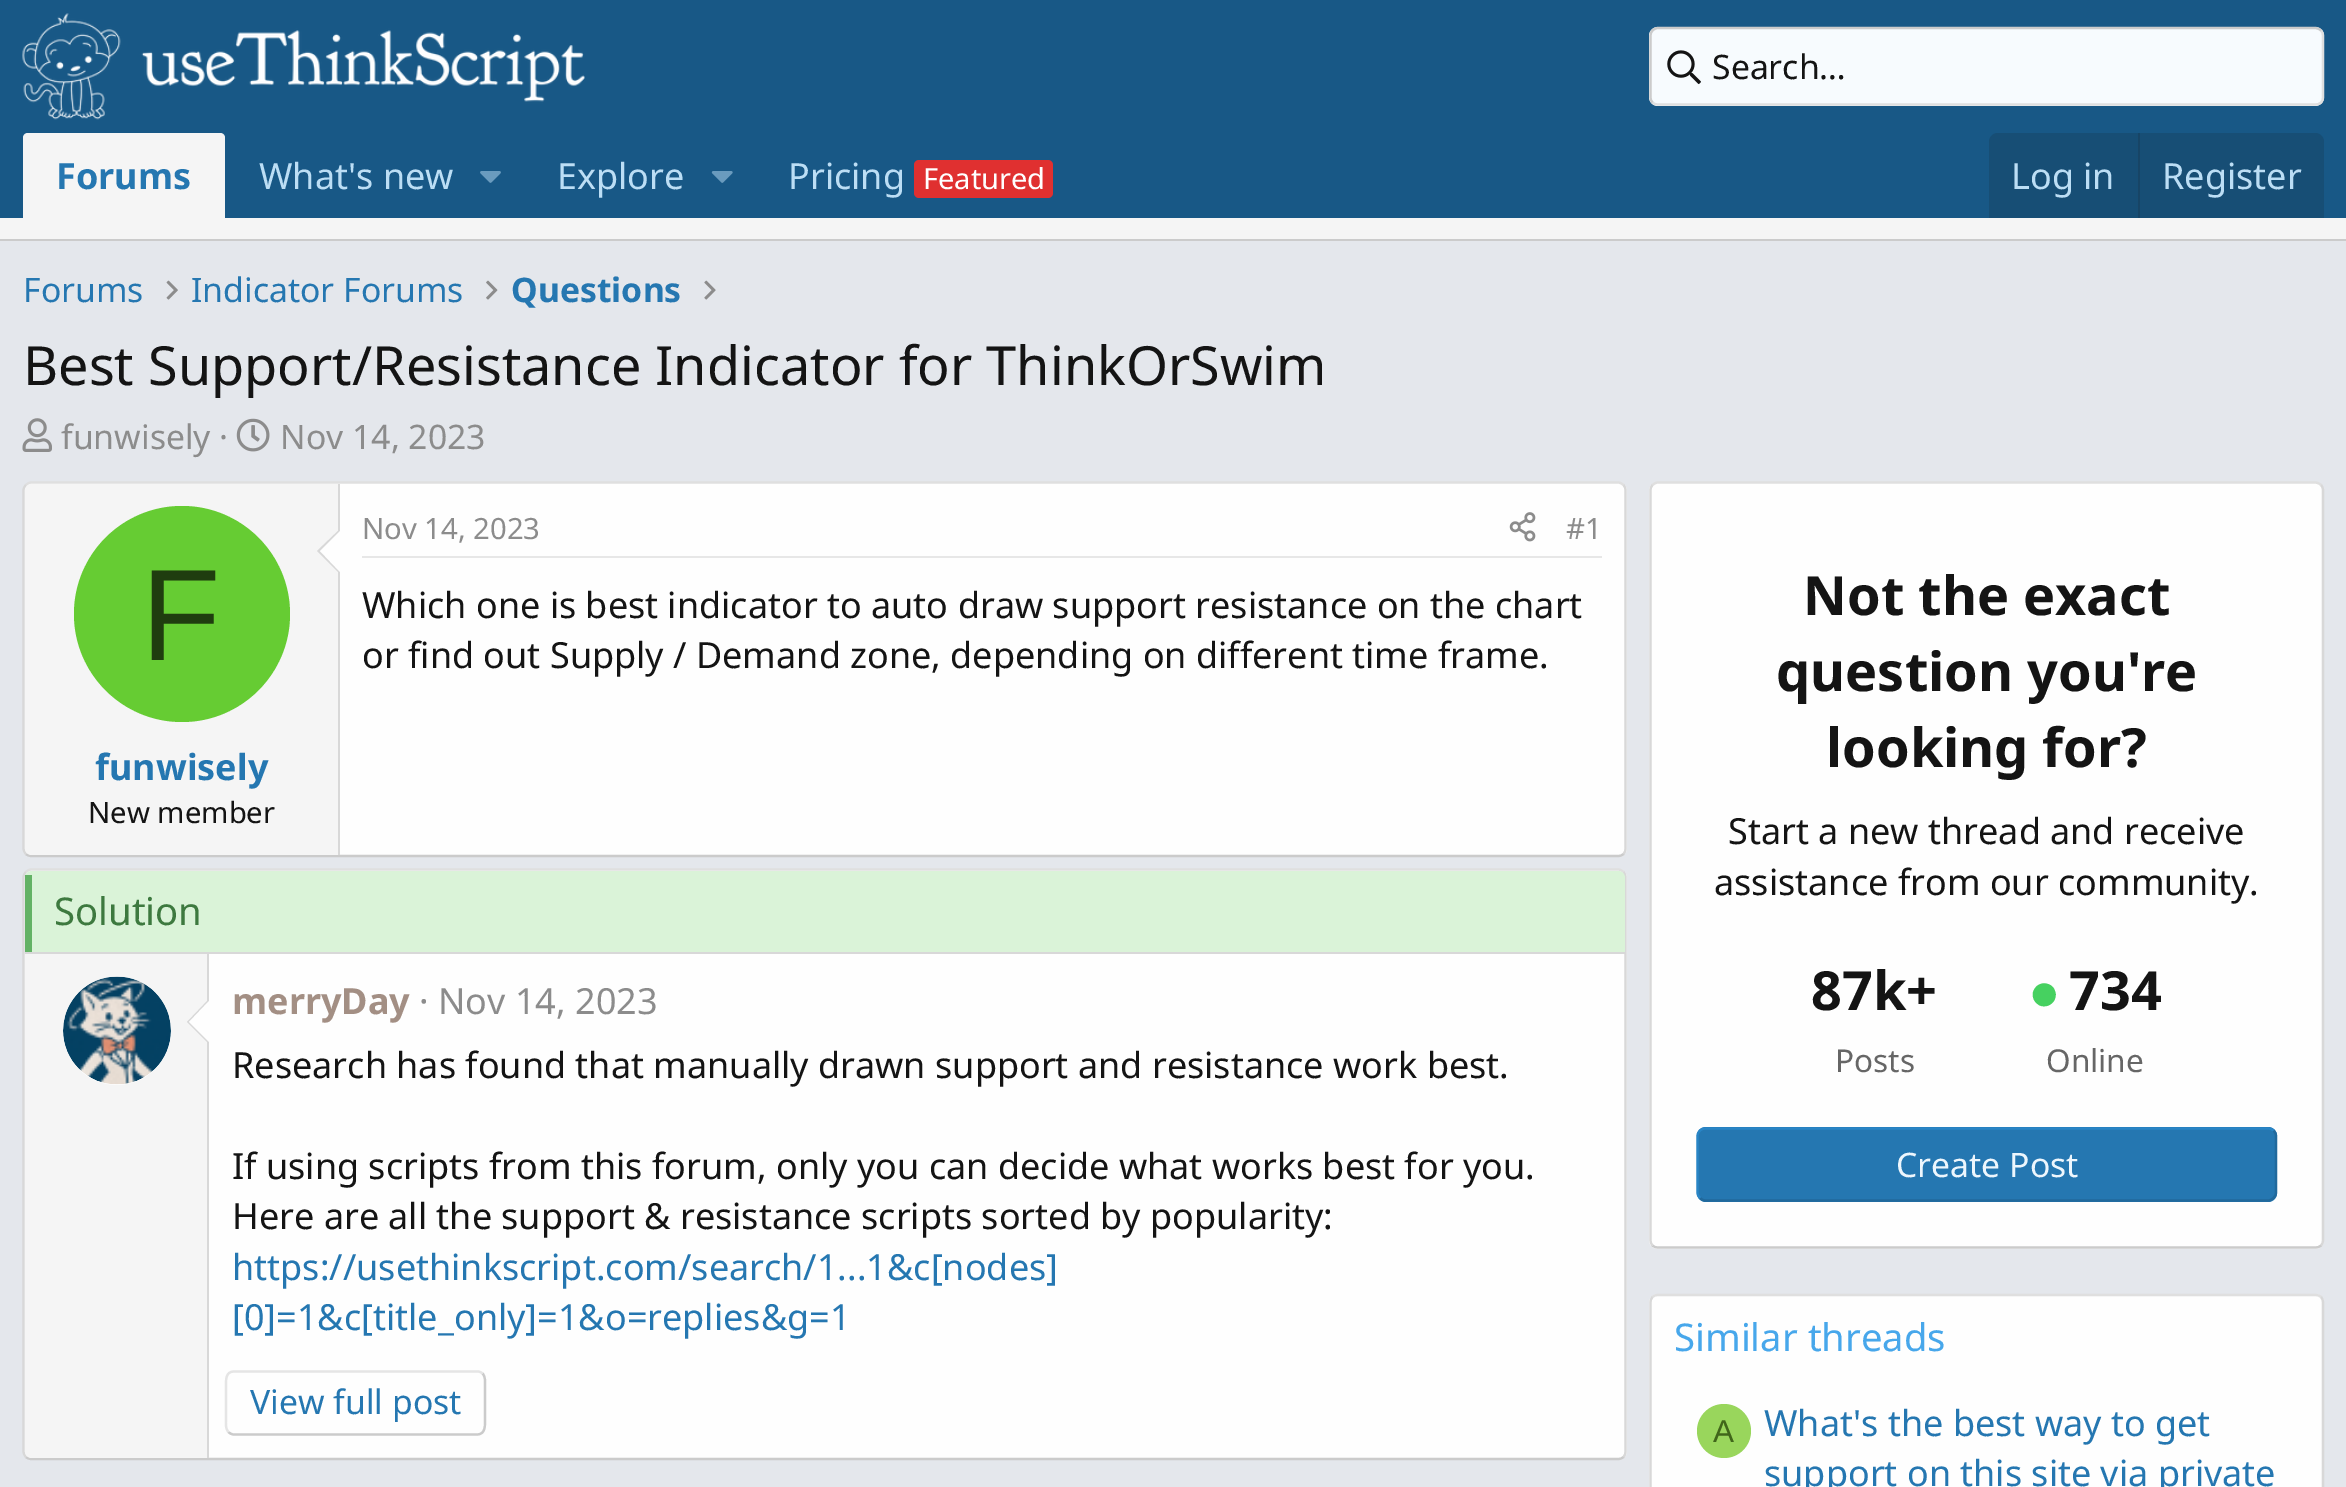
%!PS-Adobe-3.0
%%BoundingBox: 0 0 2346 1487
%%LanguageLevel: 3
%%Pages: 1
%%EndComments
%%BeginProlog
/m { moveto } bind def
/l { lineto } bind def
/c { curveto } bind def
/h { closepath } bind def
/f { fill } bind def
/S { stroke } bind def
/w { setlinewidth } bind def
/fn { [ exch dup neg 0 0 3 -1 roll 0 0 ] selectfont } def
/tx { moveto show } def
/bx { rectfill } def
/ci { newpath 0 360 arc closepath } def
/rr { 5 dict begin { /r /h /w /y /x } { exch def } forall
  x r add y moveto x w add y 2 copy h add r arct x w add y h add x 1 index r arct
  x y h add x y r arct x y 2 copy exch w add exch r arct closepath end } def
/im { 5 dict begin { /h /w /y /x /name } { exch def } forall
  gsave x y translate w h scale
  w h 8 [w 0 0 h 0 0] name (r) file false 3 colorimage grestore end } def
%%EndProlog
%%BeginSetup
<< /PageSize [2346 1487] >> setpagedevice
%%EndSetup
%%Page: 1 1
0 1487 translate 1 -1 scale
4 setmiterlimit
0.894 0.906 0.925 setrgbcolor
0 0 2346 1487 bx
0.094 0.345 0.525 setrgbcolor
0 0 2346 218 bx
(image0.raw) 22 13 563 107 im
0.969 0.984 0.996 setrgbcolor
1649 27 675 79 9 rr f
0.875 setgray
2.2 w
2321 30.5 m 2322.5 32 2323 34 2323 36 c 2323 97 l 2323 99 2322.5 101 2321 102.5 c 2319.5 104 2317.5 104.5 2315 104.5 c 1658 104.5 l 1656 104.5 1654 104 1652.5 102.5 c S
0.796 setgray
1652.5 102.5 m 1651 101 1650.5 99 1650.5 97 c 1650.5 36 l 1650.5 34 1651 32 1652.5 30.5 c 1654 29 1656 28 1658 28 c 2315 28 l 2317.5 28 2319.5 29 2321 30.5 c S
(image1.raw) 1667 50 34 35 im
/NotoSans-Regular 33.75 fn
0.078 setgray
(Search…) 1712 79 tx
0.961 setgray
28 133 m 220 133 l 223 133 225 135 225 138 c 225 218 l 23 218 l 23 138 l 23 135 25 133 28 133 c h f
/NotoSans-Bold 36 fn
0.145 0.467 0.694 setrgbcolor
(Forums) 56 189 tx
/NotoSans-Regular 36 fn
0.737 0.871 0.961 setrgbcolor
(What's new) 259 189 tx
(image2.raw) 480 171 21 12 im
(Explore) 557 189 tx
(image3.raw) 711 171 22 12 im
(Pricing) 788 189 tx
0.878 0.188 0.188 setrgbcolor
914 160 139 38 5 rr f
/NotoSans-Regular 29 fn
1 setgray
(Featured) 923 189 tx
0.09 0.306 0.459 setrgbcolor
1998 133 m 2315 133 l 2320 133 2324 137 2324 142 c 2324 218 l 1989 218 l 1989 142 l 1989 137 1993 133 1998 133 c h f
/NotoSans-Regular 36 fn
0.737 0.871 0.961 setrgbcolor
(Log in) 2011 189 tx
0.09 0.271 0.4 setrgbcolor
2138 133 2 85 bx
0.737 0.871 0.961 setrgbcolor
(Register) 2162 189 tx
0.961 setgray
0 218 2346 21 bx
0.796 setgray
0 239 2346 2 bx
/NotoSans-Regular 33.75 fn
0.145 0.467 0.694 setrgbcolor
(Forums) 23 302 tx
(image4.raw) 166 280 12 20 im
(Indicator Forums) 191 302 tx
(image5.raw) 486 280 12 20 im
/NotoSans-Bold 33.75 fn
(Questions) 511 302 tx
(image6.raw) 704 280 12 20 im
/NotoSans-Regular 54 fn
0.078 setgray
(Best Support/Resistance Indicator for ThinkOrSwim) 23 385 tx
(image7.raw) 22 418 30 34 im
/NotoSans-Regular 33.75 fn
0.549 setgray
(funwisely ·) 61 449 tx
(image8.raw) 236 418 34 34 im
(Nov 14, 2023) 280 449 tx
0.996 setgray
23 482 1604 375 9 rr f
0.875 setgray
26 485 m 27.5 483.5 29.5 482.5 31.5 482.5 c 1618 482.5 l 1620 482.5 1622 483.5 1623.5 485 c S
0.847 setgray
1623.5 485 m 1625 486.5 1625.5 488.5 1625.5 490.5 c 1625.5 848 l 1625.5 850.5 1625 852.5 1623.5 854 c S
0.796 setgray
1623.5 854 m 1622 855.5 1620 856 1618 856 c 31.5 856 l 29.5 856 27.5 855.5 26 854 c S
0.847 setgray
26 854 m 24.5 852.5 23.5 850.5 23.5 848 c 23.5 490.5 l 23.5 488.5 24.5 486.5 26 485 c S
0.961 setgray
32 484 m 340 484 l 340 855 l 32 855 l 28 855 25 852 25 848 c 25 491 l 25 487 28 484 32 484 c h f
0.847 setgray
338 484 2 371 bx
340 529 m 340 574 l 317 551 l h f
0.996 setgray
340 531 m 340 572 l 320 551 l h f
0.4 0.8 0.2 setrgbcolor
182 614 108 ci f
/LiberationSans-Regular 130 fn
0.122 0.239 0.059 setrgbcolor
(F) 141 660 tx
/NotoSans-Bold 36 fn
0.145 0.467 0.694 setrgbcolor
(funwisely) 95 780 tx
/NotoSans-Regular 29.25 fn
0.078 setgray
(New member) 88 823 tx
0.906 setgray
362 556 1240 2 bx
0.549 setgray
(Nov 14, 2023) 362 539 tx
(image9.raw) 1509 512 27 30 im
(#1) 1566 539 tx
/NotoSans-Regular 36 fn
0.078 setgray
(Which one is best indicator to auto draw support resistance on the chart) 362 618 tx
(or find out Supply / Demand zone, depending on different time frame.) 362 668 tx
0.996 setgray
23 869 1604 591 9 rr f
0.875 setgray
26 872 m 27.5 870.5 29.5 869.5 31.5 869.5 c 1618 869.5 l 1620 869.5 1622 870.5 1623.5 872 c S
0.847 setgray
1623.5 872 m 1625 873.5 1625.5 875.5 1625.5 877.5 c 1625.5 1451 l 1625.5 1453.5 1625 1455.5 1623.5 1457 c S
0.796 setgray
1623.5 1457 m 1622 1458.5 1620 1459 1618 1459 c 31.5 1459 l 29.5 1459 27.5 1458.5 26 1457 c S
0.847 setgray
26 1457 m 24.5 1455.5 23.5 1453.5 23.5 1451 c 23.5 877.5 l 23.5 875.5 24.5 873.5 26 872 c S
0.855 0.953 0.847 setrgbcolor
32 871 m 1618 871 l 1622 871 1625 874 1625 878 c 1625 952 l 25 952 l 25 878 l 25 874 28 871 32 871 c h f
0.388 0.698 0.396 setrgbcolor
25 875 7 77 bx
/NotoSans-Regular 38.25 fn
0.239 0.475 0.247 setrgbcolor
(Solution) 54 925 tx
0.847 setgray
25 952 1600 2 bx
0.961 setgray
25 954 m 209 954 l 209 1458 l 32 1458 l 28 1458 25 1455 25 1451 c h f
0.847 setgray
207 954 2 504 bx
0.996 setgray
117 1031 54 ci f
(image10.raw) 63 976 108 109 im
0.847 setgray
209 999 m 209 1044 l 187 1022 l h f
0.996 setgray
209 1001 m 209 1042 l 189 1022 l h f
/NotoSans-Bold 36 fn
0.639 0.561 0.518 setrgbcolor
(merryDay) 232 1014 tx
/NotoSans-Regular 36 fn
0.549 setgray
(· Nov 14, 2023) 419 1014 tx
0.078 setgray
(Research has found that manually drawn support and resistance work best.) 232 1078 tx
(If using scripts from this forum, only you can decide what works best for you.) 232 1179 tx
(Here are all the support & resistance scripts sorted by popularity:) 232 1229 tx
0.145 0.467 0.694 setrgbcolor
(https://usethinkscript.com/search/1...1&c[nodes]) 232 1280 tx
([0]=1&c[title_only]=1&o=replies&g=1) 232 1330 tx
0.796 setgray
482.5 1373.5 m 486 1377 485 1383 485 1387 c 485 1418.5 l 485 1424.5 486 1434.5 477 1434.5 c 233 1434.5 l 231.5 1434 229.5 1433.5 228.5 1432 c S
0.898 setgray
228.5 1432 m 225 1428.5 226 1423 226 1418.5 c 226 1387 l 226 1381 225 1371.5 234 1371.5 c 478 1371.5 l 479.5 1371.5 481.5 1372.5 482.5 1373.5 c S
/NotoSans-Regular 33.75 fn
0.145 0.467 0.694 setrgbcolor
(View full post) 250 1414 tx
0.996 setgray
1649 482 675 767 9 rr f
0.875 setgray
1652.5 485 m 1654 483.5 1656 482.5 1658 482.5 c 2315 482.5 l 2317.5 482.5 2319.5 483.5 2321 485 c S
0.847 setgray
2321 485 m 2322.5 486.5 2323 488.5 2323 490.5 c 2323 1240 l 2323 1242 2322.5 1244 2321 1245.5 c S
0.796 setgray
2321 1245.5 m 2319.5 1247 2317.5 1247.5 2315 1247.5 c 1658 1247.5 l 1656 1247.5 1654 1247 1652.5 1245.5 c S
0.847 setgray
1652.5 1245.5 m 1651 1244 1650.5 1242 1650.5 1240 c 1650.5 490.5 l 1650.5 488.5 1651 486.5 1652.5 485 c S
/NotoSans-Bold 54 fn
0.078 setgray
(Not the exact) 1803 615 tx
(question you're) 1776 691 tx
(looking for?) 1826 767 tx
/NotoSans-Regular 36 fn
(Start a new thread and receive) 1728 844 tx
(assistance from our community.) 1714 895 tx
/NotoSans-Bold 54 fn
(87k+) 1811 1010 tx
/NotoSans-Regular 31.5 fn
0.4 setgray
(Posts) 1835 1072 tx
/LiberationSans-Bold 54 fn
0.275 0.82 0.376 setrgbcolor
(●) 2028 1010 tx
/NotoSans-Bold 54 fn
0.078 setgray
(734) 2069 1010 tx
/NotoSans-Regular 31.5 fn
0.4 setgray
(Online) 2046 1072 tx
0.145 0.467 0.694 setrgbcolor
1697 1127 580 75 9 rr f
0.129 0.412 0.612 setrgbcolor
2273.5 1130.5 m 2275 1132 2276 1134 2276 1136 c 2276 1192.5 l 2276 1194.5 2275 1196.5 2273.5 1198 c 2272 1199.5 2270 1200.5 2268 1200.5 c 1705.5 1200.5 l 1703.5 1200.5 1701.5 1199.5 1700 1198 c S
0.161 0.522 0.776 setrgbcolor
1700 1198 m 1698.5 1196.5 1697.5 1194.5 1697.5 1192.5 c 1697.5 1136 l 1697.5 1134 1698.5 1132 1700 1130.5 c 1701.5 1129 1703.5 1128.5 1705.5 1128.5 c 2268 1128.5 l 2270 1128.5 2272 1129 2273.5 1130.5 c S
/NotoSans-Regular 33.75 fn
0.929 0.965 0.992 setrgbcolor
(Create Post) 1896 1177 tx
0.996 setgray
1649 1294 675 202 9 rr f
0.875 setgray
1652.5 1297 m 1654 1295.5 1656 1295 1658 1295 c 2315 1295 l 2317.5 1295 2319.5 1295.5 2321 1297 c S
0.847 setgray
2321 1297 m 2322.5 1298.5 2323 1300.5 2323 1303 c 2323 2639 l 2323 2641.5 2322.5 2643.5 2321 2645 c S
1652.5 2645 m 1651 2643.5 1650.5 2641.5 1650.5 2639 c 1650.5 1303 l 1650.5 1300.5 1651 1298.5 1652.5 1297 c S
/NotoSans-Regular 38.25 fn
0.278 0.655 0.922 setrgbcolor
(Similar threads) 1674 1351 tx
0.6 0.839 0.361 setrgbcolor
1724 1431 27 ci f
/LiberationSans-Regular 31.5 fn
0.251 0.4 0.102 setrgbcolor
(A) 1713 1442 tx
/NotoSans-Regular 36 fn
0.145 0.467 0.694 setrgbcolor
(What's the best way to get) 1764 1436 tx
(support on this site via private) 1764 1486 tx
showpage
%%EOF
